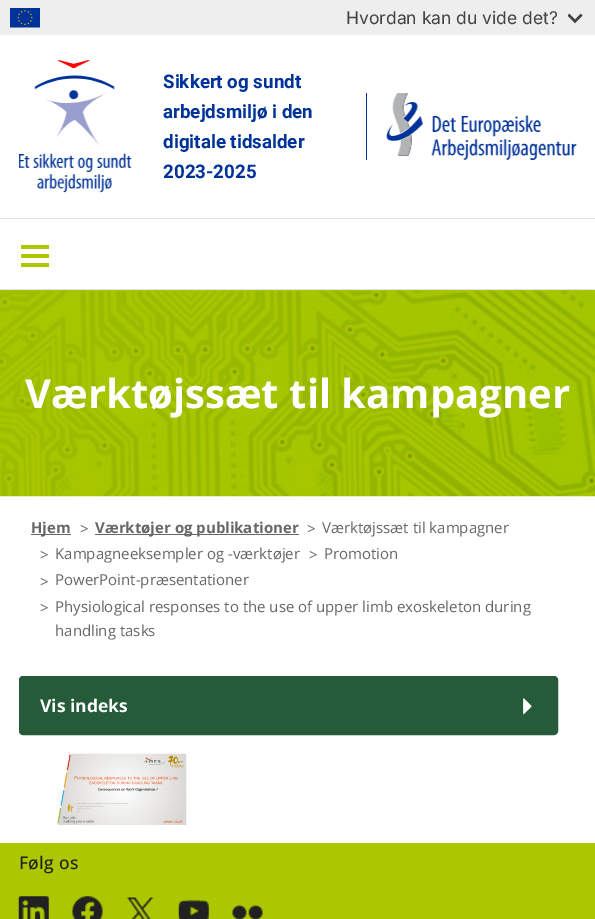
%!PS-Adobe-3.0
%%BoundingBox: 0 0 595 919
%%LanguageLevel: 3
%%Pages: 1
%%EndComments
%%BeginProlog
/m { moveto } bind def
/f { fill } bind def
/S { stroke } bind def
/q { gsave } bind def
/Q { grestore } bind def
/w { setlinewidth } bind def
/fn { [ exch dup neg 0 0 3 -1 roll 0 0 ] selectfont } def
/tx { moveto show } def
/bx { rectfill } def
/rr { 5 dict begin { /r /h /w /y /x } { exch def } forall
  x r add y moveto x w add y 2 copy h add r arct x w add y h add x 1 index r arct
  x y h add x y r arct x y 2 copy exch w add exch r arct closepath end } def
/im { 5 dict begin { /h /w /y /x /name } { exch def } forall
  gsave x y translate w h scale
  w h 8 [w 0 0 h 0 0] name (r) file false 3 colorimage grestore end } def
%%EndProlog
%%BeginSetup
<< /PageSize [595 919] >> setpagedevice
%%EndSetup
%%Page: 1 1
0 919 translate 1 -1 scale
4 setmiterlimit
1 setgray
0 0 595 919 bx
0.933 setgray
0 0 595 35 bx
(image0.raw) 10 8 30 20 im
/Inter-Regular 17.5 fn
0.267 setgray
(Hvordan kan du vide det?) 346 24 tx
(image1.raw) 568 13 15 11 im
(image2.raw) 19 60 113 133 im
/Roboto-Bold 18.75 fn
0 0.2 0.6 setrgbcolor
(Sikkert og sundt) 163 88 tx
(arbejdsmiljø i den) 163 118 tx
(digitale tidsalder) 163 148 tx
(2023-2025) 163 178 tx
366 93 1 67 bx
(image3.raw) 386 93 191 67 im
0.878 setgray
0 218 595 1 bx
0 289 595 1 bx
0.675 0.78 0 setrgbcolor
21 245 28 4 1 rr f
21 254 28 4 1 rr f
21 263 28 4 1 rr f
(image4.raw) 0 290 595 207 im
/OpenSans-Bold 40 fn
1 setgray
(Værktøjssæt til kampagner) 25 408 tx
0.4 setgray
31 534 40 1 bx
/OpenSans-Bold 15 fn
(Hjem) 31 533 tx
/OpenSans-Regular 15 fn
(>) 80 534 tx
95 534 204 1 bx
/OpenSans-Bold 15 fn
(Værktøjer og publikationer) 95 533 tx
/OpenSans-Regular 15 fn
(>) 307 534 tx
(Værktøjssæt til kampagner) 322 533 tx
(>) 40 560 tx
(Kampagneeksempler og -værktøjer) 55 559 tx
(>) 309 560 tx
(Promotion) 324 559 tx
(>) 40 587 tx
(PowerPoint-præsentationer) 55 585 tx
(>) 40 613 tx
(Physiological responses to the use of upper limb exoskeleton during) 55 612 tx
(handling tasks) 55 636 tx
0.145 0.357 0.224 setrgbcolor
20.5 677.5 536 56 2.5 rr q f Q
3 w
S
/OpenSans-Bold 17.5 fn
1 setgray
(Vis indeks) 40 712 tx
(image5.raw) 523 698 9 17 im
(image6.raw) 57 753 130 72 im
0.675 0.78 0 setrgbcolor
0 843 595 76 bx
/OpenSans-Medium 17.5 fn
0.129 setgray
19 869 m 0.25 0 (Følg os) ashow
(image7.raw) 18 896 31 23 im
(image8.raw) 72 896 31 23 im
(image9.raw) 127 897 27 22 im
(image10.raw) 178 899 31 20 im
(image11.raw) 232 904 31 15 im
showpage
%%EOF
